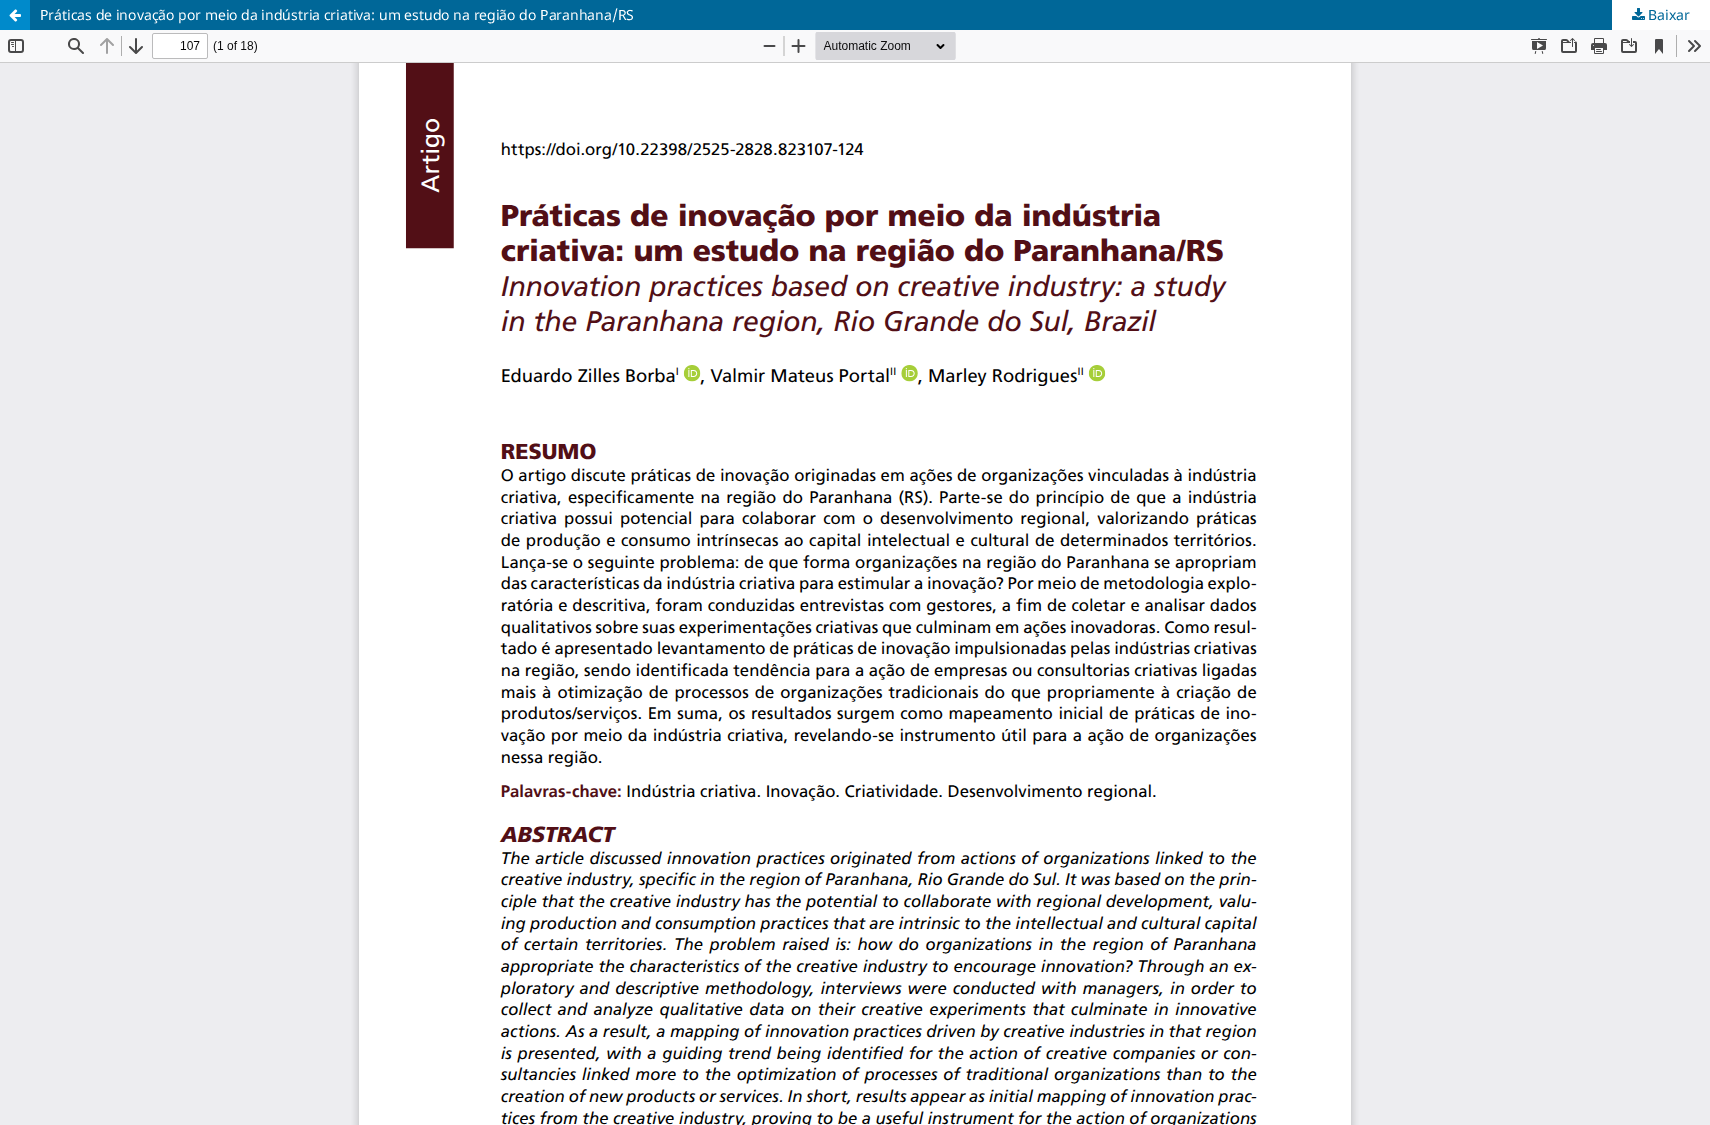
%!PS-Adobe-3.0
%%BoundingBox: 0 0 1710 1125
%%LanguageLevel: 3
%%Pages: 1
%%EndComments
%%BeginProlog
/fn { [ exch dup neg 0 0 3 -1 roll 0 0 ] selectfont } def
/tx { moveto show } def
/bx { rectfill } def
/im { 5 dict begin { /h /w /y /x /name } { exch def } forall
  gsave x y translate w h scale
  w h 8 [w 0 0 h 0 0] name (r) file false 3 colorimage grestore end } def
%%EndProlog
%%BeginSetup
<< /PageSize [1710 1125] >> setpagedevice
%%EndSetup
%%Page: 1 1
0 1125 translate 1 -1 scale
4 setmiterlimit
1 setgray
0 0 1710 1125 bx
0 0.404 0.596 setrgbcolor
30 0 1582 30 bx
0 0.541 0.796 setrgbcolor
0 0 30 30 bx
(image0.raw) 9 9 12 13 im
/NotoSans-Regular 14 fn
1 setgray
(Práticas de inovação por meio da indústria criativa: um estudo na região do Paranhana/RS) 40 20 tx
(image1.raw) 1632 8 13 12 im
0 0.404 0.596 setrgbcolor
(Baixar) 1648 20 tx
(image2.raw) 0 30 1710 1095 im
showpage
%%EOF
